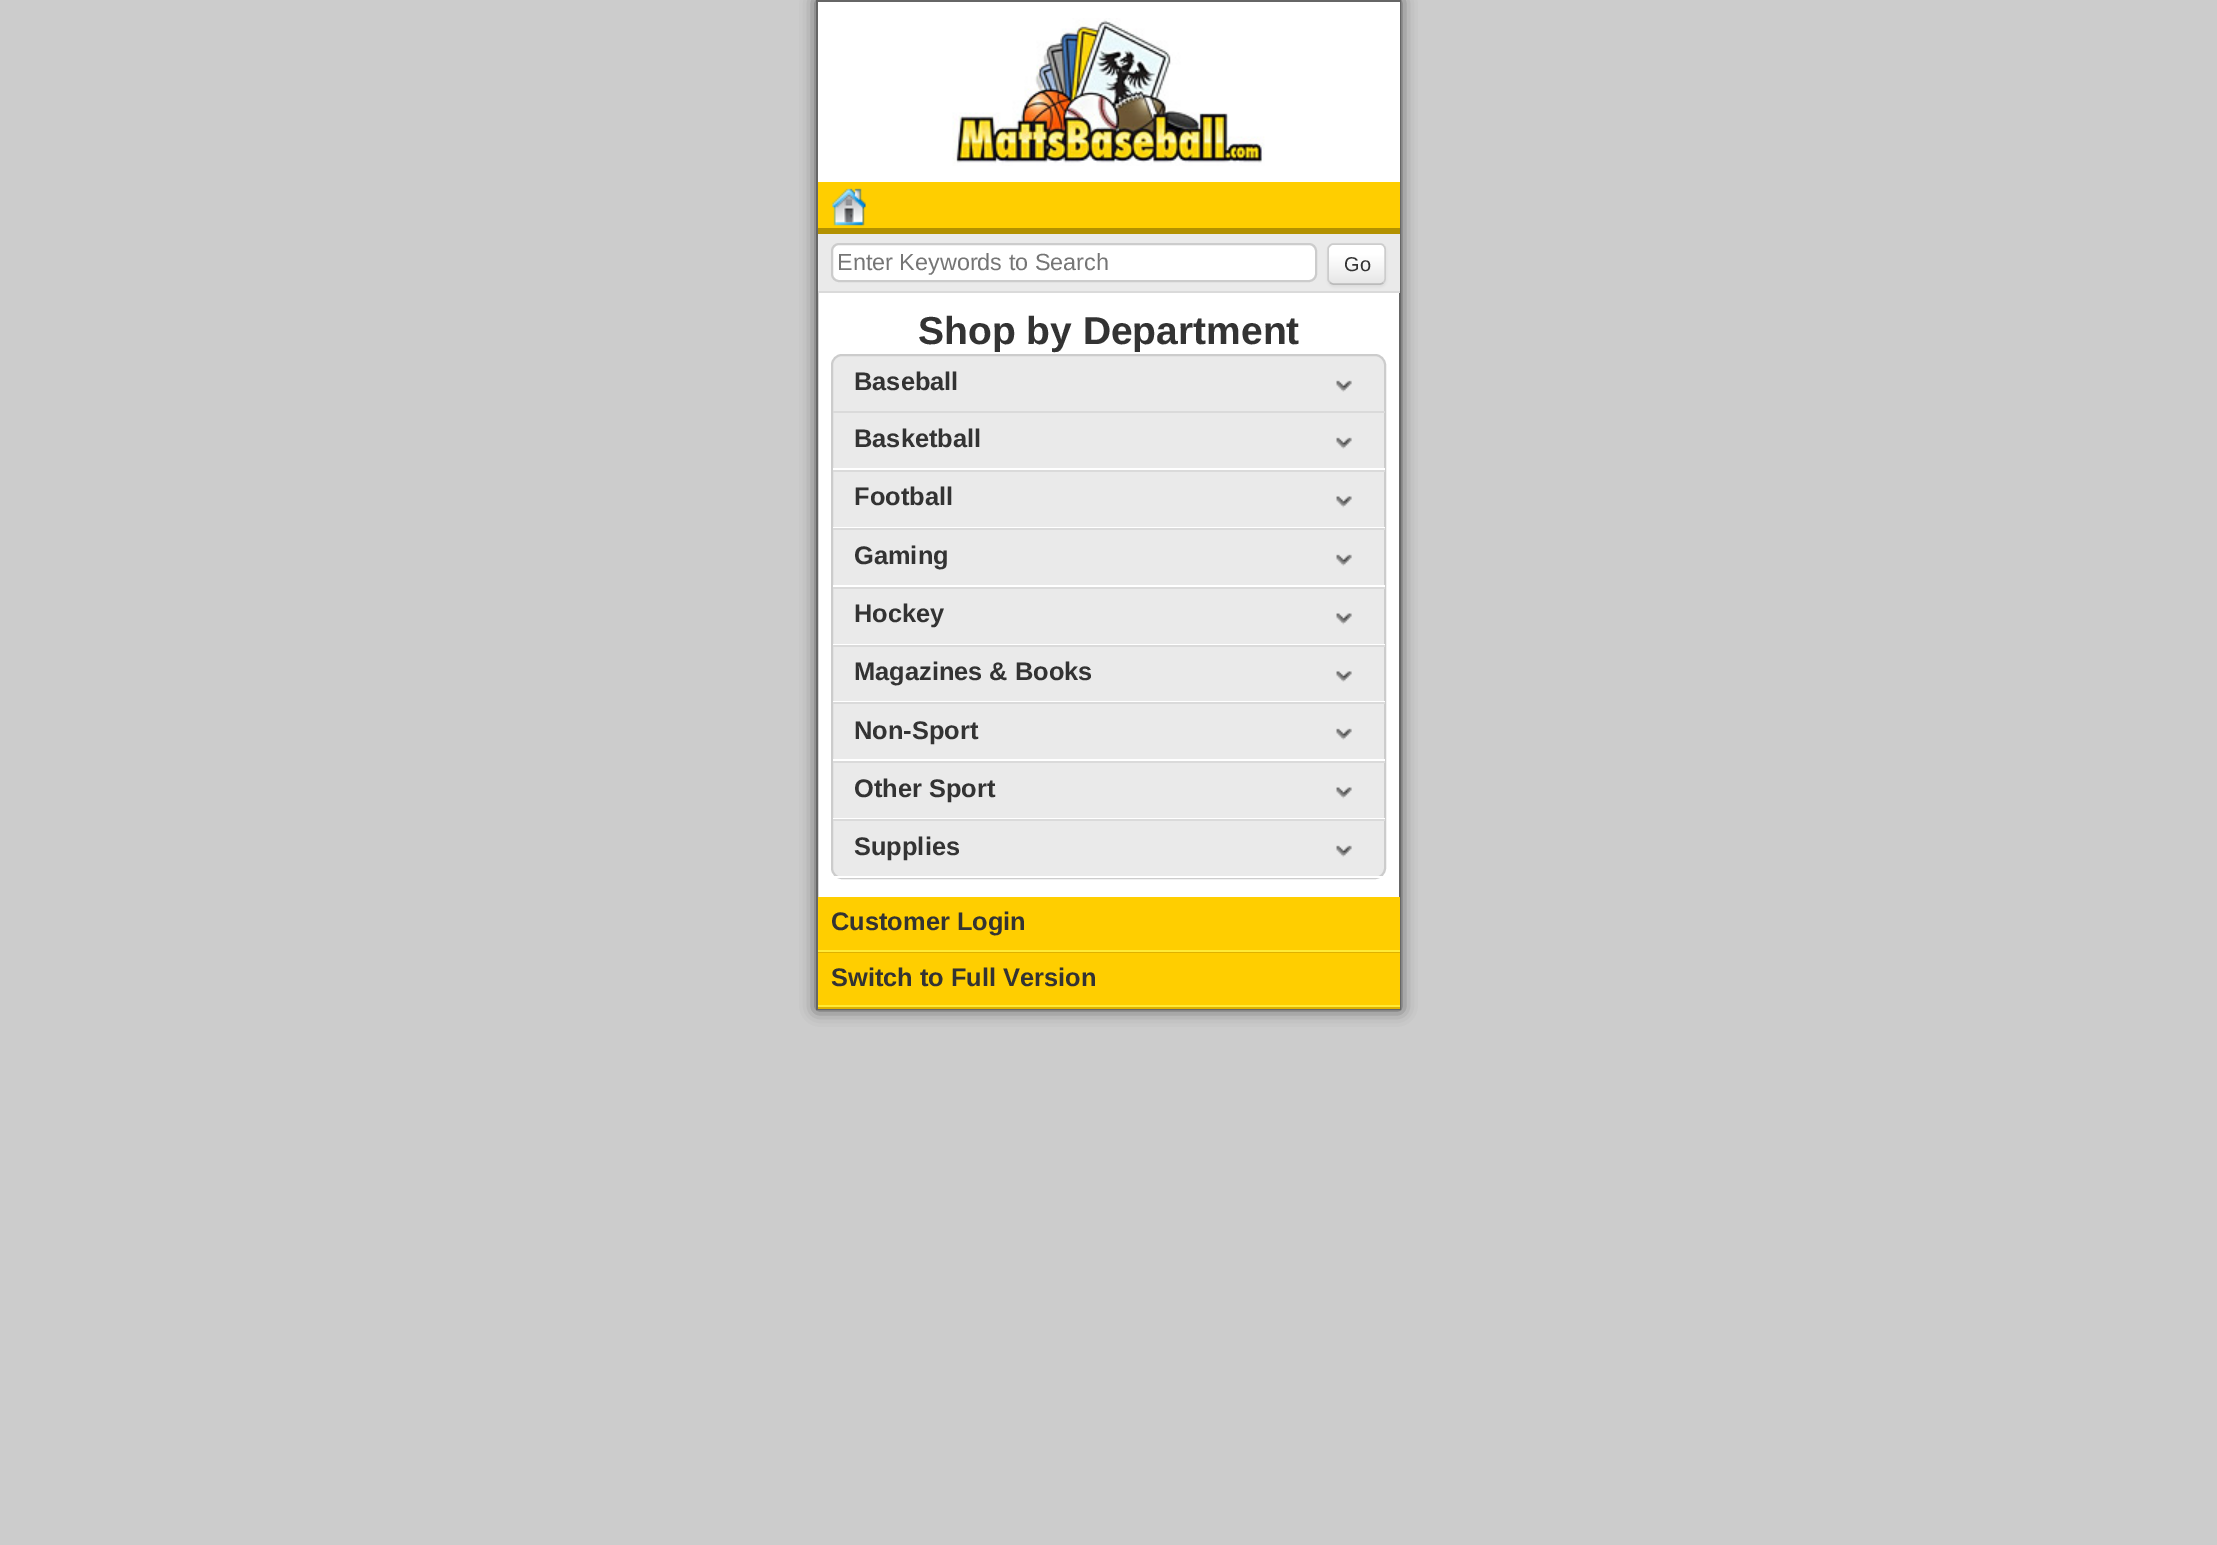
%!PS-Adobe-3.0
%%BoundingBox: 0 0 2217 1545
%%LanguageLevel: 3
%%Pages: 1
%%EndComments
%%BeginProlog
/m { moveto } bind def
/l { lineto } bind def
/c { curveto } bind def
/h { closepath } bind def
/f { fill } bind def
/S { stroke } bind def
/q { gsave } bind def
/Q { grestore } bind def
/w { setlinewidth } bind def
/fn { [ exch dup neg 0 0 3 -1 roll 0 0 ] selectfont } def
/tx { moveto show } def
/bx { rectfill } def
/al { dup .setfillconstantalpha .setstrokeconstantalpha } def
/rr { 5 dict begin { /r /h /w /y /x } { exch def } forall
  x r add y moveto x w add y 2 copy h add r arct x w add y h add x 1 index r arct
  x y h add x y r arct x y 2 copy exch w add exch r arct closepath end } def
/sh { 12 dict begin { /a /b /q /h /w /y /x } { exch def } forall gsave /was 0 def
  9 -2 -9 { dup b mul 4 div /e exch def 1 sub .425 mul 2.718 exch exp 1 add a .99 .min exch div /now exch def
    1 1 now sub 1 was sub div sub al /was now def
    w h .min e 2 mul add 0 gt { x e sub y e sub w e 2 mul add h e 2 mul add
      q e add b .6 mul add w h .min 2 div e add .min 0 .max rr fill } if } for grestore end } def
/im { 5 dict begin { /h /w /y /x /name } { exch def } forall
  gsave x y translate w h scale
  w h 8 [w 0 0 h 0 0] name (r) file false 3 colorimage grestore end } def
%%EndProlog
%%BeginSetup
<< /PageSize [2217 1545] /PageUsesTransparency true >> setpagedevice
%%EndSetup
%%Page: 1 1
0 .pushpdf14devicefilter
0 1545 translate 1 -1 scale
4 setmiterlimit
0.8 setgray
0 0 2217 1545 bx
0 setgray
816 0 585 1010 0 7.5 0.6 sh
1 setgray
818 293 581 604 bx
0.4 setgray
2 w
817 1 583 1008 rectstroke
1 setgray
818 2 582 180 bx
(image0.raw) 952 18 313 148 im
1 0.808 0 setrgbcolor
818 182 582 46 bx
0.702 0.569 0 setrgbcolor
818 228 582 6 bx
(image1.raw) 832 188 34 38 im
0.918 setgray
818 234 582 57 bx
0.855 setgray
818 291 582 2 bx
1 setgray
832 244 484 37 7 rr q f Q
0.8 setgray
S
/LiberationSans-Regular 23.4 fn
0.459 setgray
(Enter Keywords to Search) 837 270 tx
0 setgray
1328 245 58 42 6 1.5 0.05 sh
0.902 setgray
1328 243 58 42 6 rr f
q
1328 243 58 42 6 rr clip newpath
q 1329 245 m 1385 245 l 1385 284 l 1329 284 l h clip newpath
<< /ShadingType 2 /ColorSpace /DeviceRGB /Coords [1357 245 1357 284] /Extend [true true] /Function << /FunctionType 3 /Domain [0 1] /Functions [<< /FunctionType 2 /Domain [0 1] /C0 [1 1 1] /C1 [1 1 1] /N 1 >> << /FunctionType 2 /Domain [0 1] /C0 [1 1 1] /C1 [0.902 0.902 0.902] /N 1 >>] /Bounds [0.25] /Encode [0 1 0 1] >> >> shfill Q
Q
0.2 al
1 setgray
1334 246 m 1380 246 l 1382 246 1384 248 1384 250 c 1384 280 l 1383 283 l 1384 282 1385 280 1385 279 c 1385 250 l 1385 247 1383 245 1380 245 c 1334 245 l 1331 245 1329 247 1329 250 c 1329 248 1331 246 1334 246 c h f
1 al
0.733 setgray
1.5 w
1383.5 282.5 m 1382.5 283.5 1381.5 284 1380 284 c 1333.5 284 l 1332 284 1331 283.5 1330 282.5 c S
0.8 setgray
1330 282.5 m 1329 281.5 1328 280.5 1328 279 c 1328 249 l 1328 247.5 1329 246.5 1330 245.5 c 1331 244.5 1332 244 1333.5 244 c 1380 244 l 1381.5 244 1382.5 244.5 1383.5 245.5 c 1384.5 246.5 1385 247.5 1385 249 c 1385 279 l 1385 280.5 1384.5 281.5 1383.5 282.5 c S
/LiberationSans-Regular 20 fn
0.2 setgray
(Go) 1344 271 tx
/LiberationSans-Bold 39 fn
(Shop by Department) 918 344 tx
0.918 setgray
832 355 553 523 10 rr q f Q
0.8 setgray
2 w
S
(image2.raw) 1336 380 16 12 im
/LiberationSans-Bold 25.4 fn
0.2 setgray
(Baseball) 854 390 tx
0.855 setgray
833 411 552 2 bx
1 setgray
833 468 552 2 bx
(image2.raw) 1336 437 16 12 im
0.2 setgray
(Basketball) 854 447 tx
0.855 setgray
833 470 552 2 bx
1 setgray
833 527 552 1 bx
(image3.raw) 1336 496 16 12 im
0.2 setgray
(Football) 854 505 tx
0.855 setgray
833 528 552 2 bx
1 setgray
833 585 552 2 bx
(image2.raw) 1336 554 16 12 im
0.2 setgray
(Gaming) 854 564 tx
0.855 setgray
833 587 552 2 bx
1 setgray
833 644 552 1 bx
(image3.raw) 1336 613 16 12 im
0.2 setgray
(Hockey) 854 622 tx
0.855 setgray
833 645 552 2 bx
1 setgray
833 701 552 1 bx
(image4.raw) 1336 671 16 11 im
0.2 setgray
(Magazines & Books) 854 680 tx
0.855 setgray
833 702 552 2 bx
1 setgray
833 759 552 2 bx
(image2.raw) 1336 728 16 12 im
0.2 setgray
(Non-Sport) 854 739 tx
0.855 setgray
833 761 552 2 bx
1 setgray
833 818 552 1 bx
(image3.raw) 1336 787 16 12 im
0.2 setgray
(Other Sport) 854 797 tx
0.855 setgray
833 819 552 2 bx
1 setgray
833 876 552 2 bx
(image2.raw) 1336 845 16 12 im
0.2 setgray
(Supplies) 854 855 tx
1 0.808 0 setrgbcolor
818 897 582 108 bx
0.875 0.698 0 setrgbcolor
818 952 582 1 bx
1 0.918 0.212 setrgbcolor
818 950 582 2 bx
0.2 setgray
(Customer Login) 831 930 tx
0.875 0.698 0 setrgbcolor
818 1007 582 2 bx
1 0.918 0.212 setrgbcolor
818 1005 582 2 bx
0.2 setgray
(Switch to Full Version) 831 986 tx
.poppdf14devicefilter showpage
%%EOF
